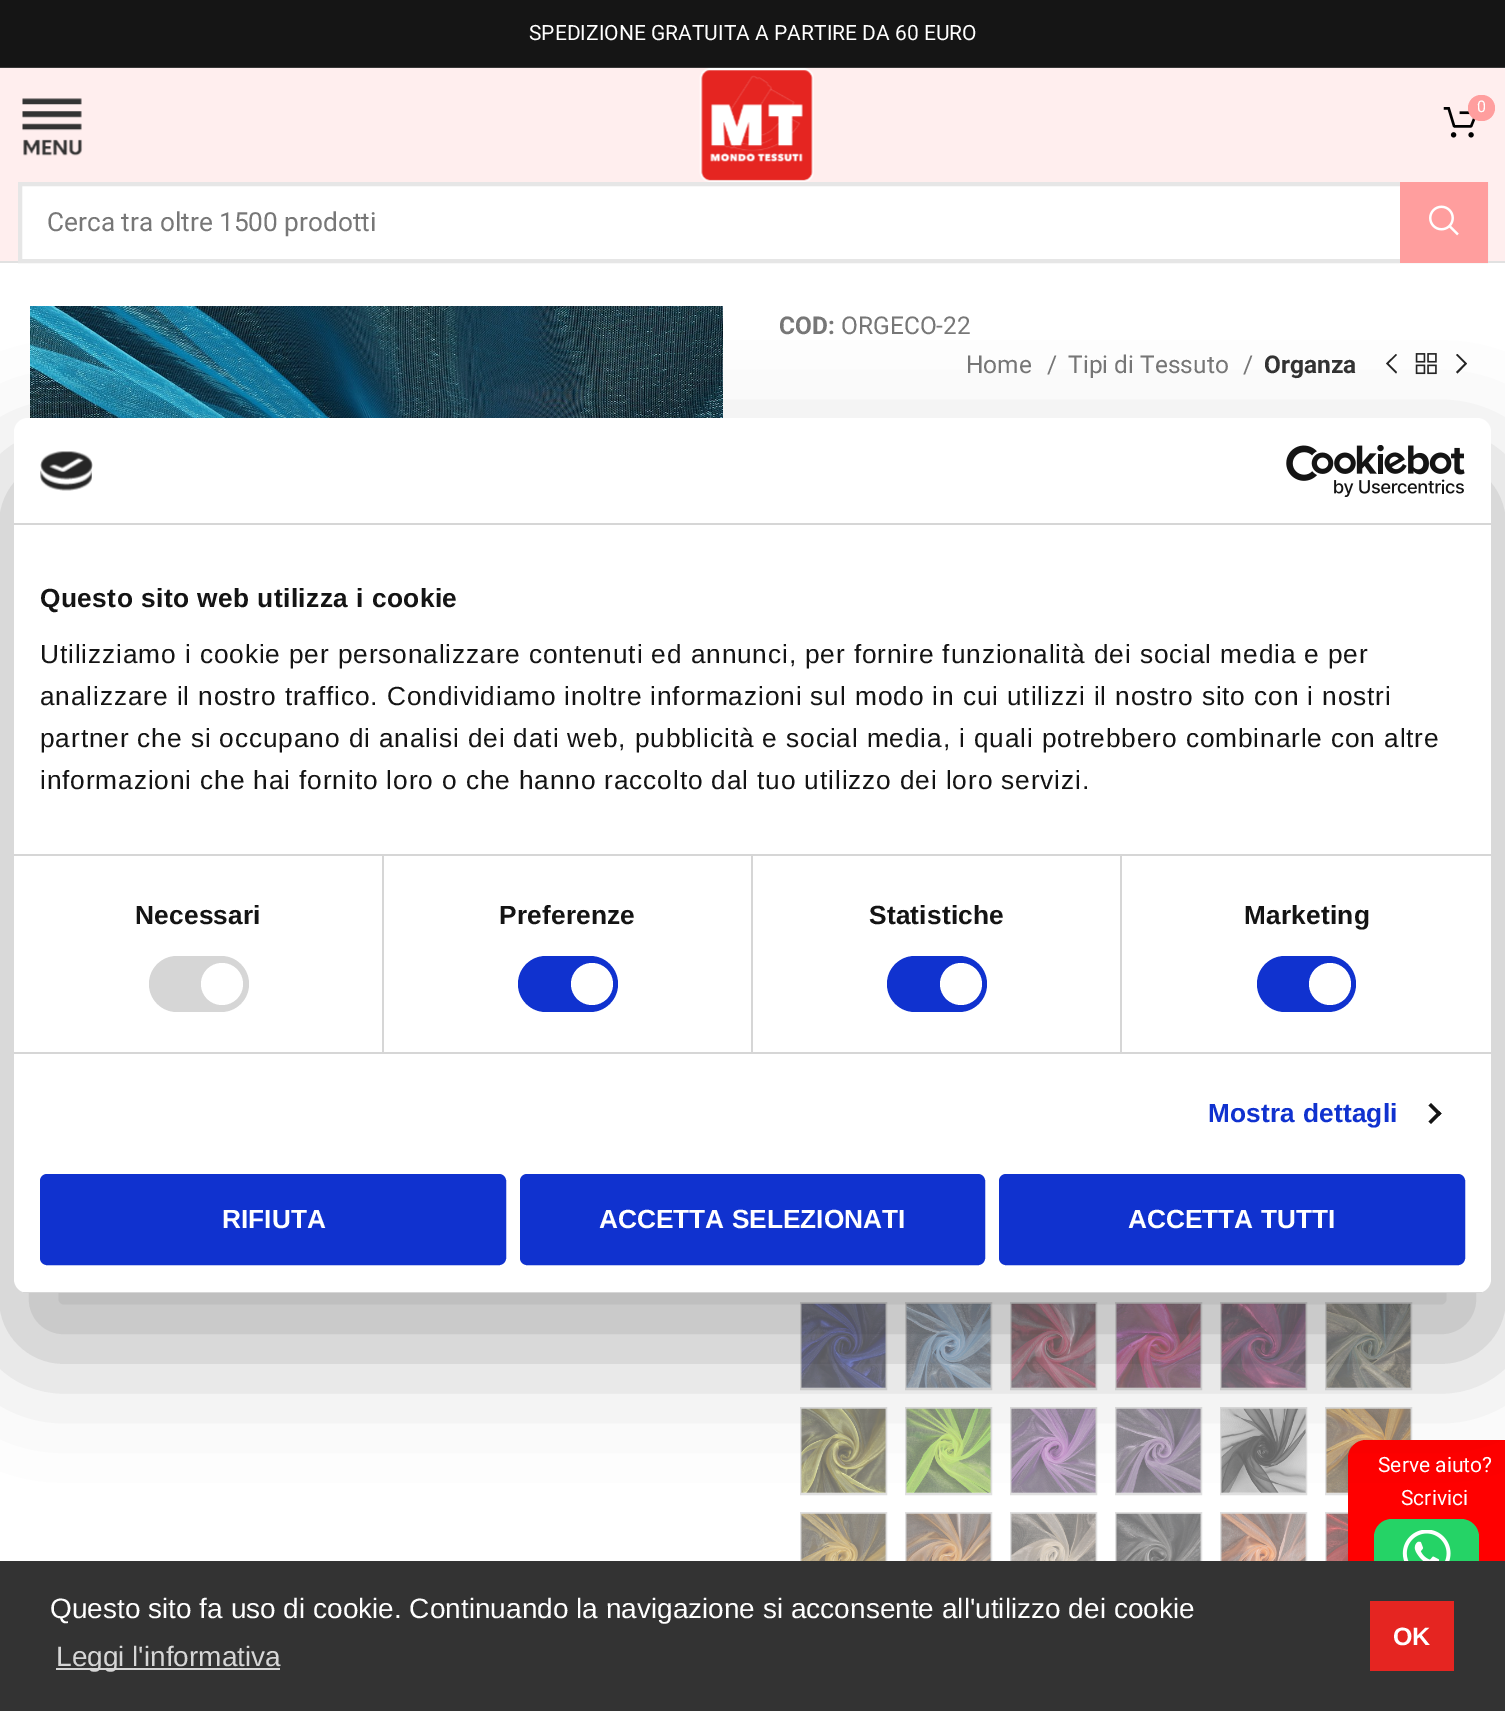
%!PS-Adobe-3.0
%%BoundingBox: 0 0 1505 1711
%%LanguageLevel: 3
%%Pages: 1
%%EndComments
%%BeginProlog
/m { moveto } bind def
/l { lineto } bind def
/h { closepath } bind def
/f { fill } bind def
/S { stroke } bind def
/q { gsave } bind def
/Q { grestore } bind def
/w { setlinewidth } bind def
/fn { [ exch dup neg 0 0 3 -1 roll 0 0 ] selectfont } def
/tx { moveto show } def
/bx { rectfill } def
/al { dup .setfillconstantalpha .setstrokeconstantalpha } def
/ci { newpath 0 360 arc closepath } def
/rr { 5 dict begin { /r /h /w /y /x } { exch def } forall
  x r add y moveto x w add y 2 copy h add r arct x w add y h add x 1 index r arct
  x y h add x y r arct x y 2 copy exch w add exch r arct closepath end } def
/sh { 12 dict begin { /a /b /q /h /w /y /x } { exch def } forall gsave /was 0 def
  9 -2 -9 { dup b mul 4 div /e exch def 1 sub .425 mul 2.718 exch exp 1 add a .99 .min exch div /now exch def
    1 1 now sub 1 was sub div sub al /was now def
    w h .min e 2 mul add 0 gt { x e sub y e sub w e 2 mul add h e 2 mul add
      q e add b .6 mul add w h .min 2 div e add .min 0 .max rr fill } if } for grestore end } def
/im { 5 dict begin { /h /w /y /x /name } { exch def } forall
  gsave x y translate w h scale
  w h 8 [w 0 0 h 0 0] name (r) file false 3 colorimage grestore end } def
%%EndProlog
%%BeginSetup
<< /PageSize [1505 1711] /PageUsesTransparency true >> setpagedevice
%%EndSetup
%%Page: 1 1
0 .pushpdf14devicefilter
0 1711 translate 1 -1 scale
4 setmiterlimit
1 setgray
0 0 1505 1711 bx
0.082 setgray
0 0 1505 67 bx
0.22 setgray
0 67 1505 1 bx
/Roboto-Regular 21 fn
1 setgray
(SPEDIZIONE GRATUITA A PARTIRE DA 60 EURO) 529 40 tx
1 0.933 0.933 setrgbcolor
0 68 1505 193 bx
(image0.raw) 22 98 61 58 im
(image1.raw) 699 68 115 114 im
(image2.raw) 1443 107 33 31 im
1 0.62 0.62 setrgbcolor
1468 95 27 26 13 rr f
/Roboto-Regular 16 fn
1 setgray
(0) 1477 112 tx
22 186 1378 73 bx
0.882 setgray
0 261 1505 2 bx
0.902 setgray
4 w
20 184 1466 77 rectstroke
/Roboto-Regular 26.25 fn
0.467 setgray
(Cerca tra oltre 1500 prodotti) 47 231 tx
1 0.62 0.62 setrgbcolor
1400 182 88 81 bx
(image3.raw) 1429 205 30 31 im
(image4.raw) 30 306 693 112 im
/Roboto-Bold 24.5 fn
0.467 setgray
(COD:) 779 334 tx
/Roboto-Regular 24.5 fn
(ORGECO-22) 841 334 tx
(Home) 966 373 tx
(/) 1047 373 tx
(Tipi di Tessuto) 1068 373 tx
(/) 1243 373 tx
/Roboto-Bold 24.5 fn
0.2 setgray
(Organza) 1264 373 tx
0.141 setgray
1397 355 m 1396 354 l 1386 363.5 l 1396 373.5 l 1397 372 l 1388.5 363.5 l h f
(image5.raw) 1415 353 22 22 im
1456 355 m 1464.5 363.5 l 1456 372 l 1457.5 373.5 l 1467 363.5 l 1457.5 354 l h f
0.878 setgray
2 w
801 1303 85 86 rectstroke
(image6.raw) 801 1303 85 85 im
906 1303 85 86 rectstroke
(image7.raw) 906 1303 85 85 im
1011 1303 85 86 rectstroke
(image8.raw) 1011 1303 85 85 im
1116 1303 85 86 rectstroke
(image9.raw) 1116 1303 85 85 im
1221 1303 85 86 rectstroke
(image10.raw) 1221 1303 85 85 im
1326 1303 85 86 rectstroke
(image11.raw) 1326 1303 85 85 im
801 1408 85 86 rectstroke
(image12.raw) 801 1408 85 85 im
906 1408 85 86 rectstroke
(image13.raw) 906 1408 85 85 im
1011 1408 85 86 rectstroke
(image14.raw) 1011 1408 85 85 im
1116 1408 85 86 rectstroke
(image15.raw) 1116 1408 85 85 im
1221 1408 85 86 rectstroke
(image16.raw) 1221 1408 85 85 im
1326 1408 85 86 rectstroke
(image17.raw) 1326 1408 85 85 im
801 1513 85 86 rectstroke
(image18.raw) 801 1513 85 48 im
906 1513 85 86 rectstroke
(image19.raw) 906 1513 85 48 im
1011 1513 85 86 rectstroke
(image20.raw) 1011 1513 85 48 im
1116 1513 85 86 rectstroke
(image21.raw) 1116 1513 85 48 im
1221 1513 85 86 rectstroke
(image22.raw) 1221 1513 85 48 im
1326 1513 85 86 rectstroke
(image23.raw) 1326 1513 22 48 im
1 0 0 setrgbcolor
1348 1440 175 254 18 rr f
0.145 0.827 0.4 setrgbcolor
1374 1519 105 70 18 rr f
0 setgray
14 474 1477 875 14 59.5 0.3 sh
1 setgray
14 418 1477 875 14 rr f
0.839 setgray
14 523 1477 2 bx
(image24.raw) 40 451 53 40 im
(image25.raw) 1286 445 179 52 im
14 854 1477 2 bx
/LiberationSans-Bold 26.25 fn
0.078 setgray
40 607 m 0.45 0 (Questo sito web utilizza i cookie) ashow
/LiberationSans-Regular 26.25 fn
40 663 m 0.88 0 (Utilizziamo i cookie per personalizzare contenuti ed annunci, per fornire funzionalità dei social media e per) ashow
40 705 m 0.88 0 (analizzare il nostro traffico. Condividiamo inoltre informazioni sul modo in cui utilizzi il nostro sito con i nostri) ashow
40 747 m 0.88 0 (partner che si occupano di analisi dei dati web, pubblicità e social media, i quali potrebbero combinarle con altre) ashow
40 789 m 0.88 0 (informazioni che hai fornito loro o che hanno raccolto dal tuo utilizzo dei loro servizi.) ashow
0.839 setgray
14 1052 1477 2 bx
382 856 2 196 bx
/LiberationSans-Bold 26.25 fn
0.078 setgray
135 924 m 0.2 0 (Necessari) ashow
0.839 setgray
149 956 100 56 28 rr f
1 setgray
222 984 21 ci f
0.839 setgray
751 856 2 196 bx
0.078 setgray
499 924 m 0.2 0 (Preferenze) ashow
0.063 0.196 0.812 setrgbcolor
518 956 100 56 28 rr f
1 setgray
592 984 21 ci f
0.839 setgray
1120 856 2 196 bx
0.078 setgray
869 924 m 0.2 0 (Statistiche) ashow
0.063 0.196 0.812 setrgbcolor
887 956 100 56 28 rr f
1 setgray
961 984 21 ci f
0.078 setgray
1244 924 m 0.2 0 (Marketing) ashow
0.063 0.196 0.812 setrgbcolor
1257 956 99 56 28 rr f
1 setgray
1330 984 21 ci f
0.063 0.196 0.812 setrgbcolor
1208 1122 m 0.2 0 (Mostra dettagli) ashow
0.078 setgray
1431 1103 m 1441.5 1113.5 l 1439 1116 l 1428.5 1105.5 l h f
1439 1111 m 1441.5 1113.5 l 1431 1124 l 1428.5 1121.5 l h f
q
14 418 1477 875 14 rr clip newpath
0.839 setgray
23 1292 1459 1 bx
Q
0.063 0.196 0.812 setrgbcolor
42 1176 462 87 5 rr q f Q
4 w
S
1 setgray
(RIFIUTA) 222 1228 tx
0.063 0.196 0.812 setrgbcolor
522 1176 461 87 5 rr q f Q
S
1 setgray
(ACCETTA SELEZIONATI) 599 1228 tx
0.063 0.196 0.812 setrgbcolor
1001 1176 462 87 5 rr q f Q
S
1 setgray
(ACCETTA TUTTI) 1128 1228 tx
/Roboto-Regular 21 fn
(Serve aiuto?) 1378 1472 tx
(Scrivici) 1401 1505 tx
(image26.raw) 1402 1530 49 31 im
0.2 setgray
0 1561 1505 150 bx
/LiberationSans-Regular 28 fn
1 setgray
(Questo sito fa uso di cookie. Continuando la navigazione si acconsente all'utilizzo dei cookie) 50 1618 tx
0.839 setgray
56 1668 224 2 bx
(Leggi l'informativa) 56 1666 tx
0.898 0.145 0.129 setrgbcolor
1370 1601 84 70 bx
/LiberationSans-Bold 25 fn
1 setgray
(OK) 1393 1645 tx
.poppdf14devicefilter showpage
%%EOF
